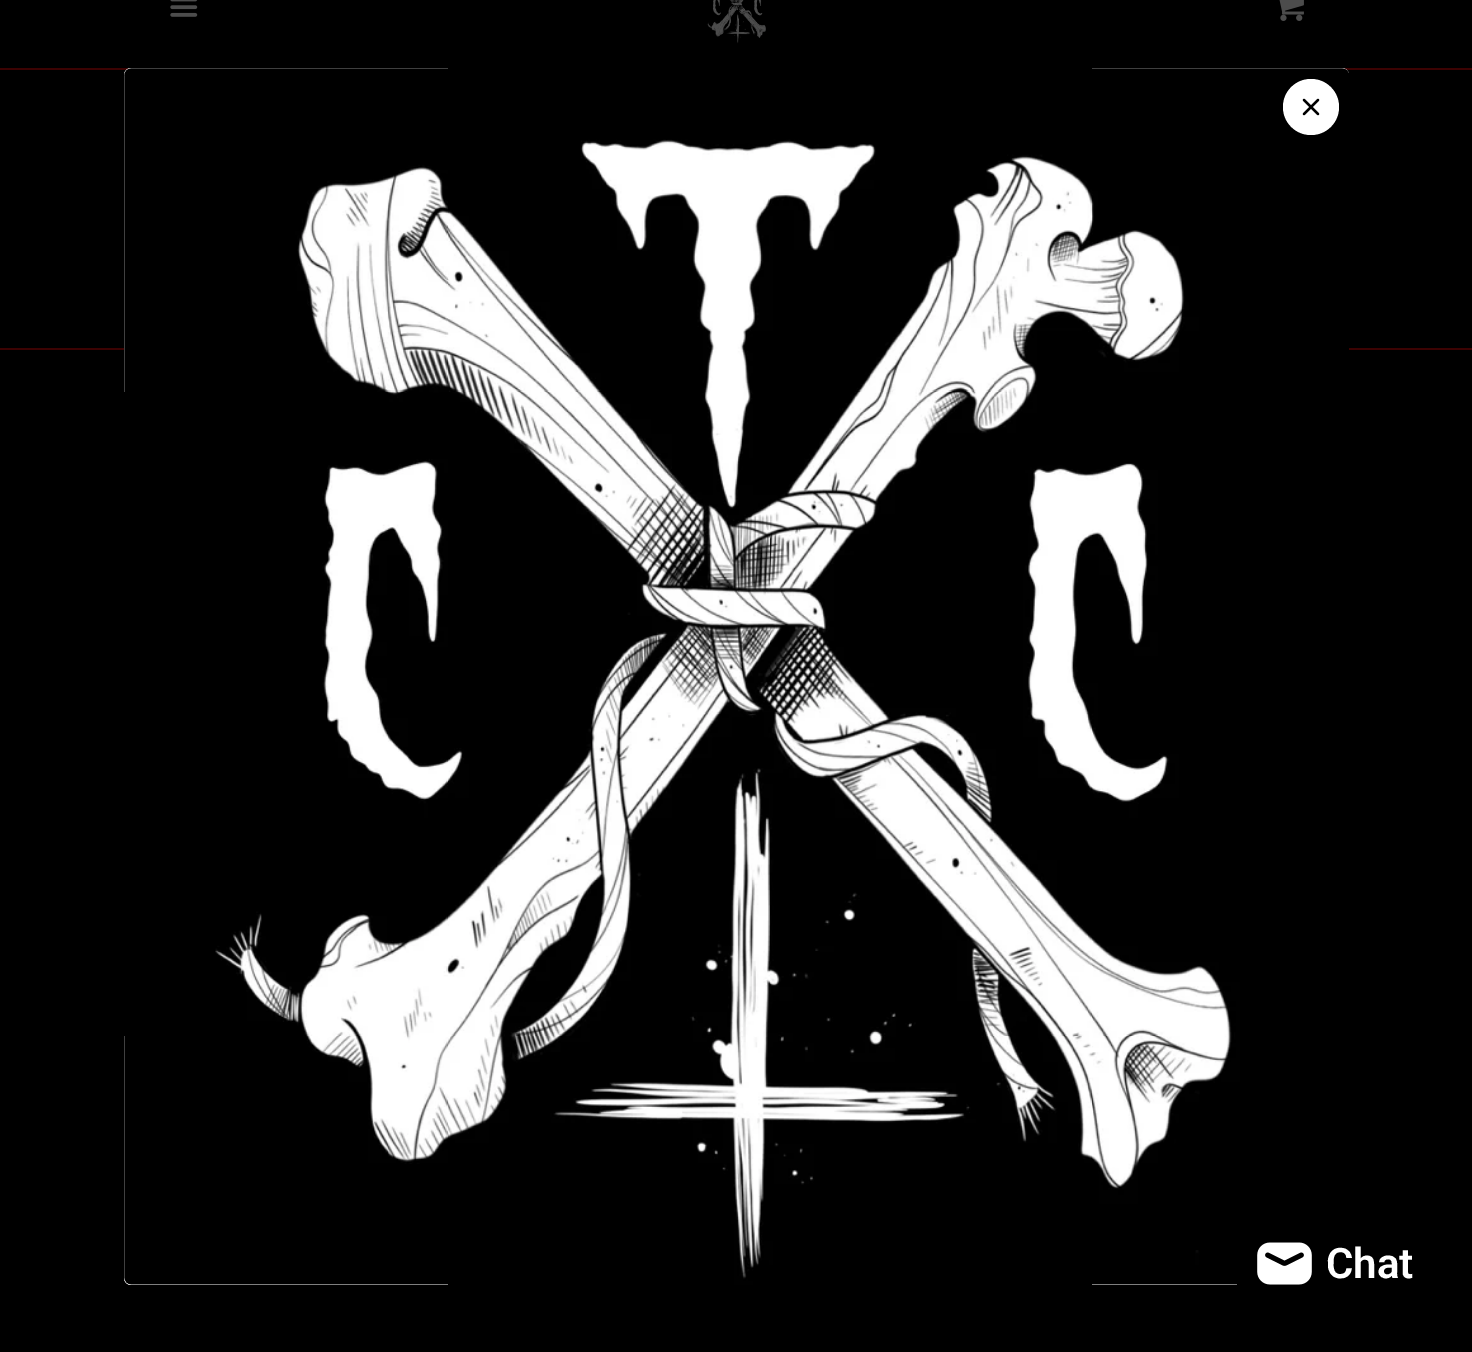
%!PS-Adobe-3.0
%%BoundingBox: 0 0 1472 1352
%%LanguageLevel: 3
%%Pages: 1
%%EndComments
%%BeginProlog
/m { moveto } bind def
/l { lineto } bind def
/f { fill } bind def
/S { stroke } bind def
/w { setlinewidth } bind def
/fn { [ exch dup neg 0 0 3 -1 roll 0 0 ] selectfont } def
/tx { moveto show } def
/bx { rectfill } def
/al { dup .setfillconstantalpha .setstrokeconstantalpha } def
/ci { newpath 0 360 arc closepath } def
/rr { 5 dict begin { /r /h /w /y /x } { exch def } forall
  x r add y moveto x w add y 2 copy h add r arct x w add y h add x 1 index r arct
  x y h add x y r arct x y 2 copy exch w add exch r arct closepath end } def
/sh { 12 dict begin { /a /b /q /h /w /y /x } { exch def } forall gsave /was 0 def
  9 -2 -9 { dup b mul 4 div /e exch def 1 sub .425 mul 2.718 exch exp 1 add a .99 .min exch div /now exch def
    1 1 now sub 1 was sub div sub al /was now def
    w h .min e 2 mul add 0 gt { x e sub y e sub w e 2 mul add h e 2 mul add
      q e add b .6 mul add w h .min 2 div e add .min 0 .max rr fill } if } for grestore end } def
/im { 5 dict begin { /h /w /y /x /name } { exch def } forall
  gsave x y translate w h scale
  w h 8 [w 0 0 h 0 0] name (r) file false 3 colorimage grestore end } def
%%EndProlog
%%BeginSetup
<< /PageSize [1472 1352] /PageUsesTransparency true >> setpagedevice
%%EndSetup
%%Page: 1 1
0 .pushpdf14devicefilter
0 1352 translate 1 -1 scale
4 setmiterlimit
0 setgray
0 0 1472 1352 bx
0.235 0.008 0.008 setrgbcolor
0 68 1472 2 bx
(image0.raw) 170 0 28 17 im
(image1.raw) 706 0 60 44 im
(image2.raw) 1279 0 25 21 im
0 348 1472 2 bx
1 setgray
124 68 1225 1217 7 rr f
(image3.raw) 124 68 1225 1217 im
1311 107 28 ci f
0 setgray
2.3 w
1 setlinecap
1 setlinejoin
1304 114 m 1318 100 l 1304 100 m 1318 114 l S
1237 1211 198 105 28 4.5 0.15 sh
1237 1211 198 105 28 rr f
(image4.raw) 1257 1242 55 43 im
/Roboto-SemiBold 42 fn
1 setgray
(Chat) 1326 1278 tx
.poppdf14devicefilter showpage
%%EOF
